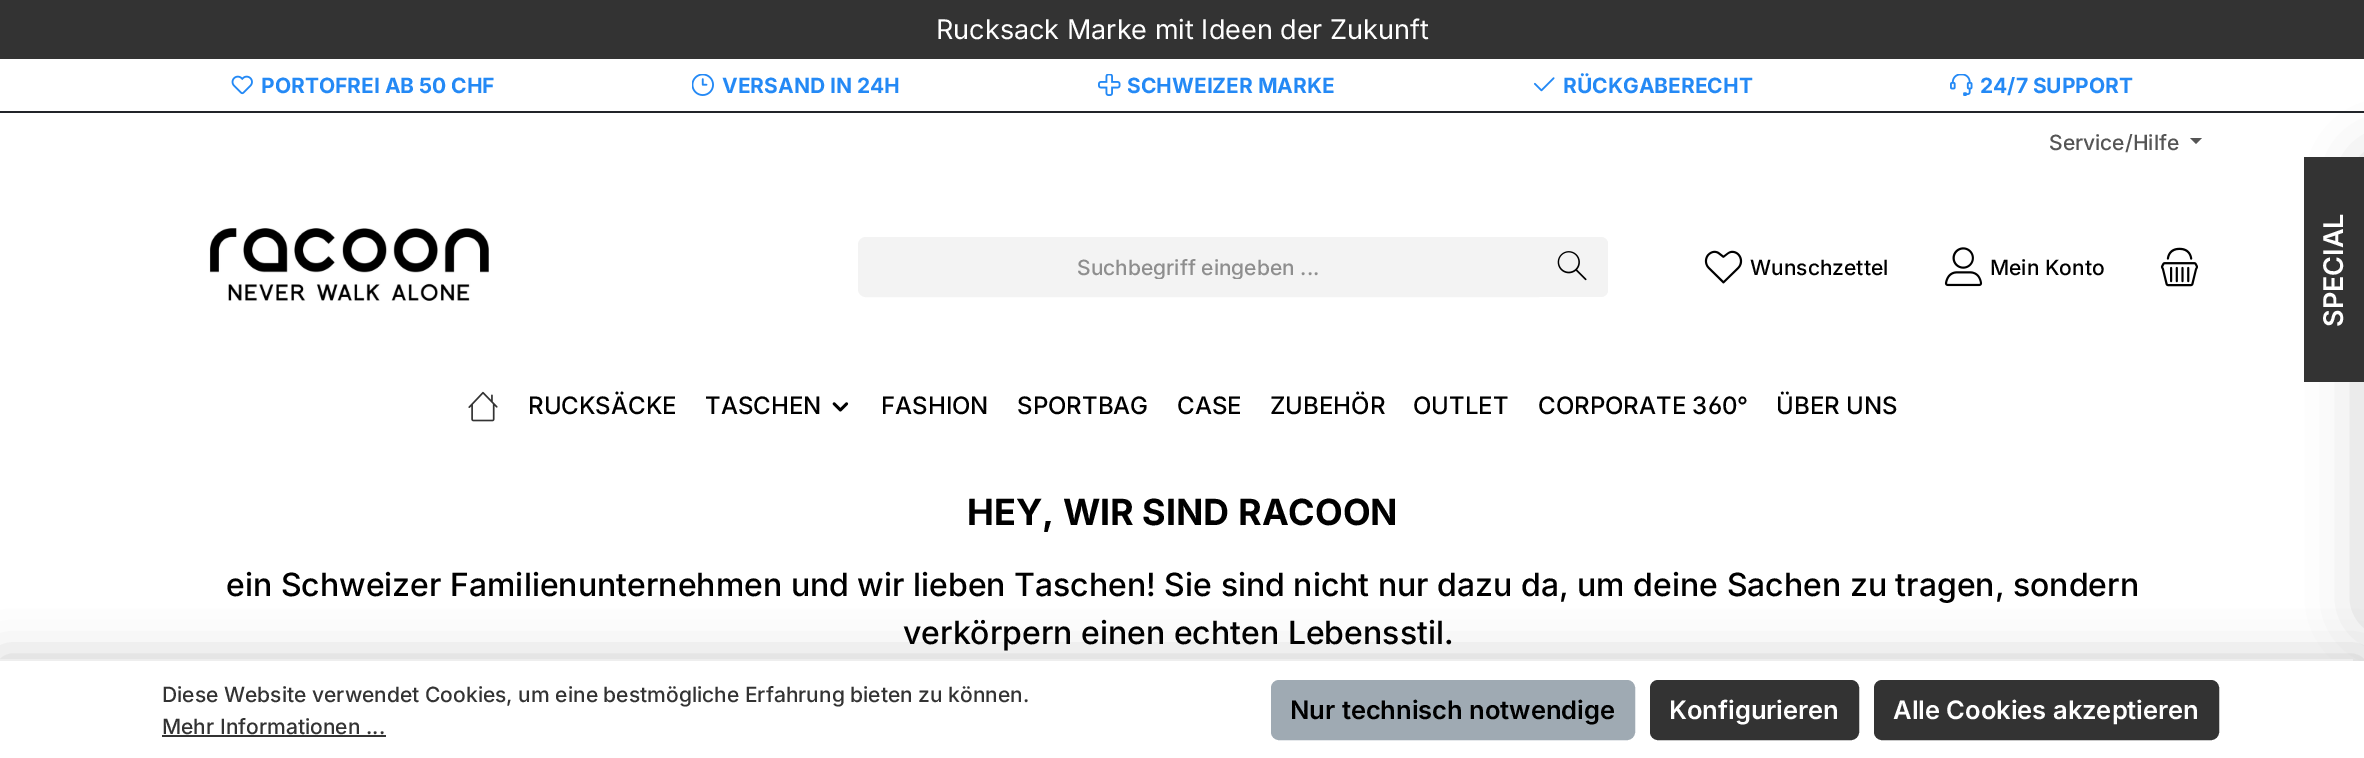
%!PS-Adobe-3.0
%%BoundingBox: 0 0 2364 758
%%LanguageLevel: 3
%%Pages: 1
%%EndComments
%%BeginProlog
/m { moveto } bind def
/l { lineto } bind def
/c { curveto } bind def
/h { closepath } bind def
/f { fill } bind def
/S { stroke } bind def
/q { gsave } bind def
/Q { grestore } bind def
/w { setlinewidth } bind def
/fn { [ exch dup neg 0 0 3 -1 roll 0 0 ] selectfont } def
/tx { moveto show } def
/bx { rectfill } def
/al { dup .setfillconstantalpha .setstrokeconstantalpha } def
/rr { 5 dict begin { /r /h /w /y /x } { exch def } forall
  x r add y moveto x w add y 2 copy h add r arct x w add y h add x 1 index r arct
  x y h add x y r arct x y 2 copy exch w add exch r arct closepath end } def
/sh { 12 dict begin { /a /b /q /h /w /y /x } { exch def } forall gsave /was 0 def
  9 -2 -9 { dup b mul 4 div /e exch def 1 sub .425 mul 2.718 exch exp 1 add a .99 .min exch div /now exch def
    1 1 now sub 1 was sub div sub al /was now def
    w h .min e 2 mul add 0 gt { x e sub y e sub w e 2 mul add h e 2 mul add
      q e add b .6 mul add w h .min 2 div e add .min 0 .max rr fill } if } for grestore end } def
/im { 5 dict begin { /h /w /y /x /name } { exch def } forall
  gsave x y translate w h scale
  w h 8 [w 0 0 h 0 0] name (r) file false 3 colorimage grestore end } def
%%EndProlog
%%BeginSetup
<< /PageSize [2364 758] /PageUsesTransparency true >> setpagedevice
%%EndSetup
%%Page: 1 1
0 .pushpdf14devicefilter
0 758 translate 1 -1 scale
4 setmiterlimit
1 setgray
0 0 2364 758 bx
0.2 setgray
0 0 2364 59 bx
/Inter-Regular 27 fn
1 setgray
(Rucksack Marke mit Ideen der Zukunft) 936 39 tx
0.129 0.141 0.161 setrgbcolor
0 111 2364 2 bx
(image0.raw) 231 75 22 20 im
/Inter-Bold 21 fn
0.141 0.537 0.961 setrgbcolor
(PORTOFREI AB 50 CHF) 261 93 tx
(image1.raw) 692 74 22 22 im
(VERSAND IN 24H) 722 93 tx
(image2.raw) 1098 74 23 22 im
(SCHWEIZER MARKE) 1127 93 tx
(image3.raw) 1534 77 21 15 im
(RÜCKGABERECHT) 1563 93 tx
(image4.raw) 1950 74 23 22 im
(24/7 SUPPORT) 1980 93 tx
/Inter-Medium 21 fn
0.333 setgray
(Service/Hilfe) 2049 150 tx
2190 138 m 2202 138 l 2196 144 l h f
(image5.raw) 209 228 280 73 im
0.953 setgray
866 238 m 1538 238 l 1538 296 l 866 296 l 862 296 859 293 859 289 c 859 245 l 859 241 862 238 866 238 c h q f Q
2 w
S
q
873 254 651 25 rectclip
0.557 setgray
(Suchbegriff eingeben ...) 1077 275 tx
Q
1538 237 m 1600 237 l 1604.5 237 1608 240.5 1608 245 c 1608 289 l 1608 293.5 1604.5 297 1600 297 c 1538 297 l h f
1538 237 m 1600 237 l 1605 237 1608 240 1608 244 c 1608 290 l 1608 294 1605 297 1600 297 c 1538 297 l h 1538 238 m 1600 238 l 1604 238 1606 241 1606 244 c 1606 290 l 1606 293 1604 296 1600 296 c 1538 296 l h eofill
(image6.raw) 1557 251 30 30 im
(image7.raw) 1704 250 39 34 im
0 setgray
(Wunschzettel) 1750 275 tx
(image8.raw) 1944 247 39 40 im
(Mein Konto) 1990 275 tx
(image9.raw) 2160 247 38 40 im
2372 165 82 450 0 30 0.25 sh
0.2 setgray
2304 157 60 225 bx
/Inter-SemiBold 27 fn
1 setgray
q 2343 327 translate -90 rotate 0 0 m (SPECIAL) show Q
(image10.raw) 468 391 30 31 im
/Inter-Medium 24 fn
0 setgray
(RUCKSÄCKE) 528 414 tx
(TASCHEN) 705 414 tx
(image11.raw) 832 402 17 10 im
(FASHION) 881 414 tx
(SPORTBAG) 1017 414 tx
(CASE) 1177 414 tx
(ZUBEHÖR) 1270 414 tx
(OUTLET) 1413 414 tx
/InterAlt-Medium 24 fn
(CORPORATE 360°) 1538 414 tx
/Inter-Medium 24 fn
(ÜBER UNS) 1776 414 tx
/Inter-Bold 36 fn
(HEY, WIR SIND RACOON) 967 525 tx
/Inter-Medium 32 fn
(ein Schweizer Familienunternehmen und wir lieben Taschen! Sie sind nicht nur dazu da, um deine Sachen zu tragen, sondern) 226 596 tx
(verkörpern einen echten Lebensstil.) 903 644 tx
0 659 2364 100 0 22.5 0.2 sh
1 setgray
0 661 2364 97 bx
0.933 setgray
0 659 2353 2 bx
/Inter-Medium 21 fn
0.2 setgray
(Diese Website verwendet Cookies, um eine bestmögliche Erfahrung bieten zu können.) 162 702 tx
(Mehr Informationen ...) 162 734 tx
162 735 224 2 bx
0.624 0.667 0.702 setrgbcolor
1272 681 362 58 7 rr q f Q
S
/Inter-SemiBold 25.5 fn
0 setgray
(Nur technisch notwendige) 1290 719 tx
0.2 setgray
1651 681 207 58 7 rr q f Q
S
1 setgray
(Konfigurieren) 1669 719 tx
0.2 setgray
1875 681 343 58 7 rr q f Q
S
1 setgray
(Alle Cookies akzeptieren) 1893 719 tx
.poppdf14devicefilter showpage
%%EOF
